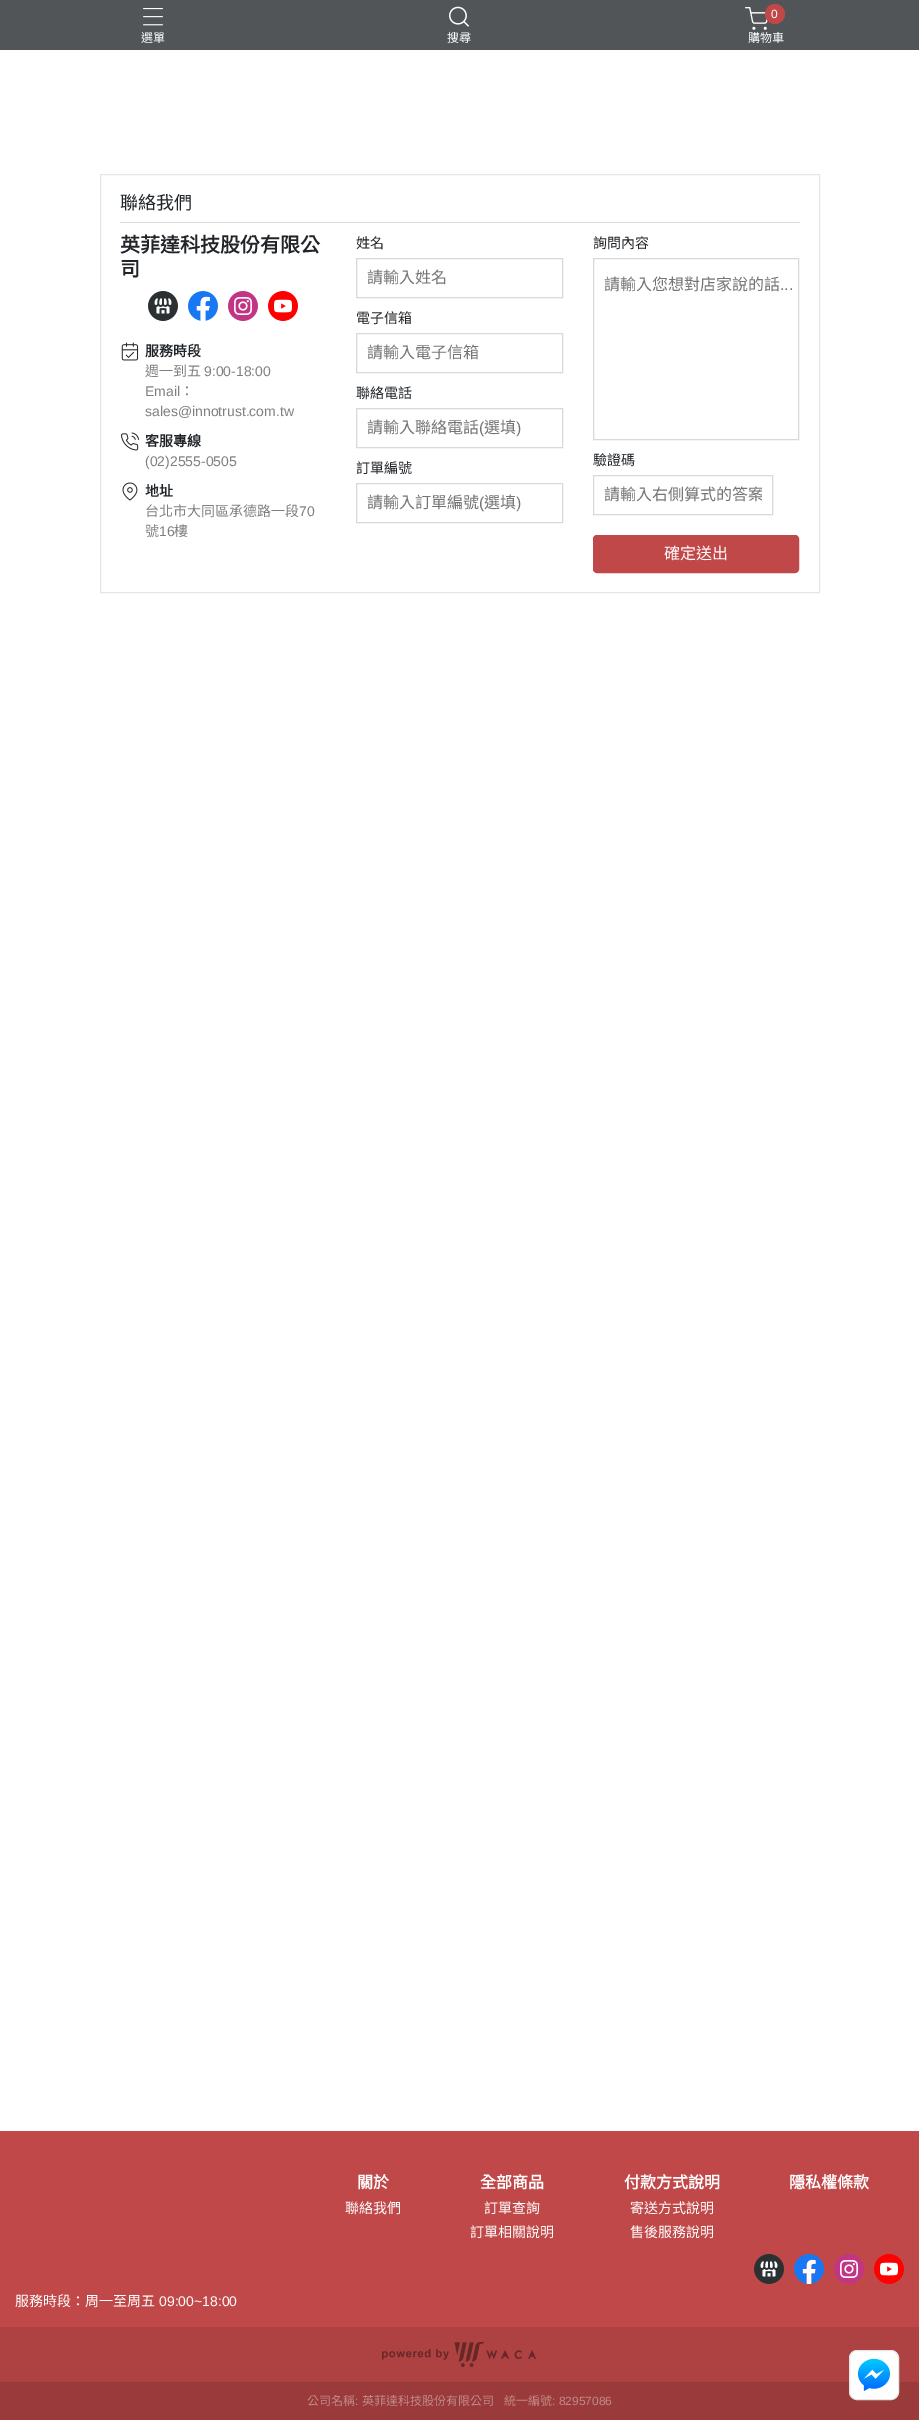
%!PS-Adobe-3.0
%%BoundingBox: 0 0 919 2420
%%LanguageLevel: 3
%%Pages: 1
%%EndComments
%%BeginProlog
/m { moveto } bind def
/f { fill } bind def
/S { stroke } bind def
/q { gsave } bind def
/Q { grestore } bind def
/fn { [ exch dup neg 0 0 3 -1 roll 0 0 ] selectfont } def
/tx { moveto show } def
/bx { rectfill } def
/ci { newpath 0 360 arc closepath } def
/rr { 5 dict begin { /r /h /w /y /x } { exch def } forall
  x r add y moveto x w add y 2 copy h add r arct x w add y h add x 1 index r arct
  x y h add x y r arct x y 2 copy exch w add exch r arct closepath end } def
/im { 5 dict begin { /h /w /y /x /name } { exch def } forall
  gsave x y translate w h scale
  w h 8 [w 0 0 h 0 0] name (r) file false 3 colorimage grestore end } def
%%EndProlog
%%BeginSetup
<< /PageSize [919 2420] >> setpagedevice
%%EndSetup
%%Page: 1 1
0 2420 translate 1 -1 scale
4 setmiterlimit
1 setgray
0 0 919 2420 bx
0.318 0.333 0.345 setrgbcolor
0 0 919 50 bx
(image0.raw) 143 8 20 18 im
/NotoSansCJKTC-Regular 12 fn
1 setgray
(選單) 141 42 tx
(image1.raw) 449 6 20 21 im
(搜尋) 447 42 tx
(image2.raw) 745 7 23 23 im
0.757 0.282 0.282 setrgbcolor
775 14 10 ci f
/LiberationSans-Regular 12 fn
1 setgray
771 18 m 1 0 (0) ashow
/NotoSansCJKTC-Regular 12 fn
(購物車) 748 42 tx
0.851 setgray
120 222 680 1 bx
0.902 setgray
100.5 174.5 719 418 rectstroke
/NotoSansCJKTC-Regular 18 fn
0.129 0.145 0.161 setrgbcolor
(聯絡我們) 120 209 tx
/NotoSansCJKTC-Bold 20 fn
(英菲達科技股份有限公) 120 252 tx
(司) 120 276 tx
(image3.raw) 148 291 30 30 im
(image4.raw) 188 291 30 30 im
(image5.raw) 228 291 30 30 im
(image6.raw) 268 291 30 30 im
(image7.raw) 121 342 18 19 im
/NotoSansCJKTC-Bold 14 fn
(服務時段) 145 356 tx
/NotoSansCJKTC-Regular 14 fn
0.502 setgray
(週一到五) 145 376 tx
/LiberationSans-Regular 14 fn
(9:00-18:00) 204 376 tx
(Email) 145 396 tx
/NotoSansCJKTC-Regular 14 fn
(：) 180 396 tx
/LiberationSans-Regular 14 fn
(sales@innotrust.com.tw) 145 416 tx
(image8.raw) 121 432 18 19 im
/NotoSansCJKTC-Bold 14 fn
0.129 0.145 0.161 setrgbcolor
(客服專線) 145 446 tx
/LiberationSans-Regular 14 fn
0.502 setgray
(\(02\)2555-0505) 145 466 tx
(image9.raw) 122 482 16 19 im
/NotoSansCJKTC-Bold 14 fn
0.129 0.145 0.161 setrgbcolor
(地址) 145 496 tx
/NotoSansCJKTC-Regular 14 fn
0.502 setgray
(台北市大同區承德路一段) 145 516 tx
/LiberationSans-Regular 14 fn
(70) 299 516 tx
/NotoSansCJKTC-Regular 14 fn
(號) 145 536 tx
/LiberationSans-Regular 14 fn
(16) 159 536 tx
/NotoSansCJKTC-Regular 14 fn
(樓) 174 536 tx
0.129 0.145 0.161 setrgbcolor
(姓名) 356 248 tx
0.851 setgray
356.5 258.5 206 39 rectstroke
/NotoSansCJKTC-Regular 16 fn
0.459 setgray
(請輸入姓名) 367 283 tx
/NotoSansCJKTC-Regular 14 fn
0.129 0.145 0.161 setrgbcolor
(電子信箱) 356 323 tx
0.851 setgray
356.5 333.5 206 39 rectstroke
/NotoSansCJKTC-Regular 16 fn
0.459 setgray
(請輸入電子信箱) 367 358 tx
/NotoSansCJKTC-Regular 14 fn
0.129 0.145 0.161 setrgbcolor
(聯絡電話) 356 398 tx
0.851 setgray
356.5 408.5 206 39 rectstroke
/NotoSansCJKTC-Regular 16 fn
0.459 setgray
(請輸入聯絡電話) 367 433 tx
/LiberationSans-Regular 16 fn
(\() 479 433 tx
/NotoSansCJKTC-Regular 16 fn
(選填) 484 433 tx
/LiberationSans-Regular 16 fn
(\)) 516 433 tx
/NotoSansCJKTC-Regular 14 fn
0.129 0.145 0.161 setrgbcolor
(訂單編號) 356 473 tx
0.851 setgray
356.5 483.5 206 39 rectstroke
/NotoSansCJKTC-Regular 16 fn
0.459 setgray
(請輸入訂單編號) 367 508 tx
/LiberationSans-Regular 16 fn
(\() 479 508 tx
/NotoSansCJKTC-Regular 16 fn
(選填) 484 508 tx
/LiberationSans-Regular 16 fn
(\)) 516 508 tx
/NotoSansCJKTC-Regular 14 fn
0.129 0.145 0.161 setrgbcolor
(詢問內容) 593 248 tx
0.851 setgray
593.5 258.5 205 181 rectstroke
/NotoSansCJKTC-Regular 16 fn
0.459 setgray
(請輸入您想對店家說的話) 604 290 tx
/LiberationSans-Regular 16 fn
(...) 780 290 tx
/NotoSansCJKTC-Regular 14 fn
0.129 0.145 0.161 setrgbcolor
(驗證碼) 593 465 tx
0.851 setgray
593.5 475.5 179 39 rectstroke
q
604 481 158 24 rectclip
/NotoSansCJKTC-Regular 16 fn
0.459 setgray
(請輸入右側算式的答案) 604 500 tx
Q
0.757 0.282 0.282 setrgbcolor
593.5 535.5 205 37 3.5 rr q f Q
S
/NotoSansCJKTC-Regular 16 fn
1 setgray
(確定送出) 664 559 tx
0.757 0.282 0.282 setrgbcolor
0 2131 919 196 bx
/NotoSansCJKTC-Bold 16 fn
1 setgray
(關於) 357 2188 tx
/NotoSansCJKTC-Regular 14 fn
(聯絡我們) 345 2213 tx
/NotoSansCJKTC-Bold 16 fn
(全部商品) 480 2188 tx
/NotoSansCJKTC-Regular 14 fn
(訂單查詢) 484 2213 tx
(訂單相關說明) 470 2237 tx
/NotoSansCJKTC-Bold 16 fn
(付款方式說明) 624 2188 tx
/NotoSansCJKTC-Regular 14 fn
(寄送方式說明) 630 2213 tx
(售後服務說明) 630 2237 tx
/NotoSansCJKTC-Bold 16 fn
(隱私權條款) 789 2188 tx
(image10.raw) 754 2254 30 30 im
(image11.raw) 794 2254 30 30 im
(image12.raw) 834 2254 30 30 im
(image13.raw) 874 2254 30 30 im
/NotoSansCJKTC-Regular 14 fn
(服務時段：周一至周五) 15 2306 tx
/LiberationSans-Regular 14 fn
(09:00~18:00) 159 2306 tx
0.682 0.255 0.255 setrgbcolor
0 2327 919 55 bx
(image14.raw) 382 2342 154 25 im
0.604 0.227 0.227 setrgbcolor
0 2382 919 38 bx
/NotoSansCJKTC-Regular 12 fn
0.761 0.537 0.537 setrgbcolor
(公司名稱) 307 2405 tx
/LiberationSans-Regular 12 fn
(:) 355 2405 tx
/NotoSansCJKTC-Regular 12 fn
(英菲達科技股份有限公司) 362 2405 tx
(統一編號) 504 2405 tx
/LiberationSans-Regular 12 fn
(: 82957086) 552 2405 tx
1 setgray
849.5 2350.5 49 49 7.5 rr q f Q
0.902 setgray
S
(image15.raw) 857 2358 34 33 im
showpage
%%EOF
